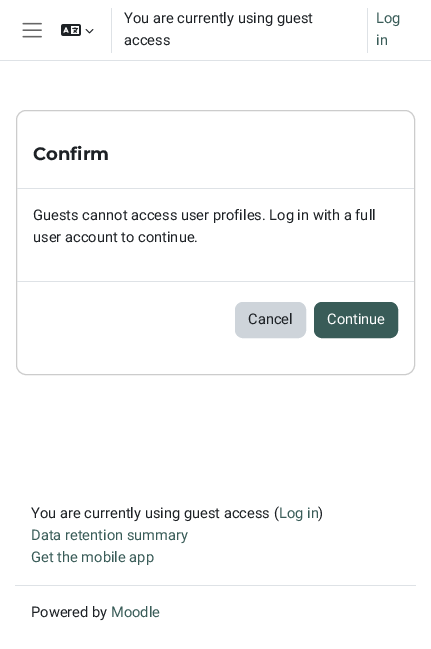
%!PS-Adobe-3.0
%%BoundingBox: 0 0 431 649
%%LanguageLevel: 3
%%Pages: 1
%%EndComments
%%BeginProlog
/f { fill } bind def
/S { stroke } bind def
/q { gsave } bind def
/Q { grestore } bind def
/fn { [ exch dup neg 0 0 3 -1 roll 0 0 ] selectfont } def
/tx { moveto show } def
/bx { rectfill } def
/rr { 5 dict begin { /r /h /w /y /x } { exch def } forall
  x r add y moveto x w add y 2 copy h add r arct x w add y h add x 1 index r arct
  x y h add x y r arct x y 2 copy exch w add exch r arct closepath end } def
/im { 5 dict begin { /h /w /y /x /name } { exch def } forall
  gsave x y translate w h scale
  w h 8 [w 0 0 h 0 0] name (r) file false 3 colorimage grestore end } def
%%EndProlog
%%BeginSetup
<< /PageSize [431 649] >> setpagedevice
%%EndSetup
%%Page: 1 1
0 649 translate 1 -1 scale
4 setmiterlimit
1 setgray
0 0 431 649 bx
0.871 0.886 0.902 setrgbcolor
0 60 431 1 bx
(image0.raw) 22 22 20 16 im
(image1.raw) 61 24 20 12 im
(image2.raw) 85 29 9 5 im
111 8 1 45 bx
/Roboto-Regular 14.65 fn
0.114 0.129 0.145 setrgbcolor
(You are currently using guest) 124 23 tx
0.871 0.886 0.902 setrgbcolor
367 8 1 45 bx
0.224 0.361 0.345 setrgbcolor
(Log) 376 23 tx
(in) 376 45 tx
0.114 0.129 0.145 setrgbcolor
(access) 124 45 tx
0.8 setgray
16.5 110.5 398 264 9.5 rr S
0.871 0.886 0.902 setrgbcolor
17 188 397 1 bx
/Montserrat-Bold 18 fn
0.114 0.129 0.145 setrgbcolor
(Confirm) 33 160 tx
/Roboto-Regular 14.65 fn
(Guests cannot access user profiles. Log in with a full) 33 220 tx
(user account to continue.) 33 242 tx
0.871 0.886 0.902 setrgbcolor
17 281 397 1 bx
0.808 0.831 0.855 setrgbcolor
235.5 302.5 70 35 7.5 rr q f Q
S
0.114 0.129 0.145 setrgbcolor
(Cancel) 248 324 tx
0.224 0.361 0.345 setrgbcolor
314.5 302.5 83 35 7.5 rr q f Q
S
1 setgray
(Continue) 327 324 tx
0.871 0.886 0.902 setrgbcolor
15 585 401 1 bx
0.114 0.129 0.145 setrgbcolor
(You are currently using guest access \() 31 518 tx
0.224 0.361 0.345 setrgbcolor
(Log in) 279 518 tx
0.114 0.129 0.145 setrgbcolor
(\)) 318 518 tx
0.224 0.361 0.345 setrgbcolor
(Data retention summary) 31 540 tx
(Get the mobile app) 31 562 tx
0.114 0.129 0.145 setrgbcolor
(Powered by) 31 617 tx
0.224 0.361 0.345 setrgbcolor
(Moodle) 111 617 tx
showpage
%%EOF
